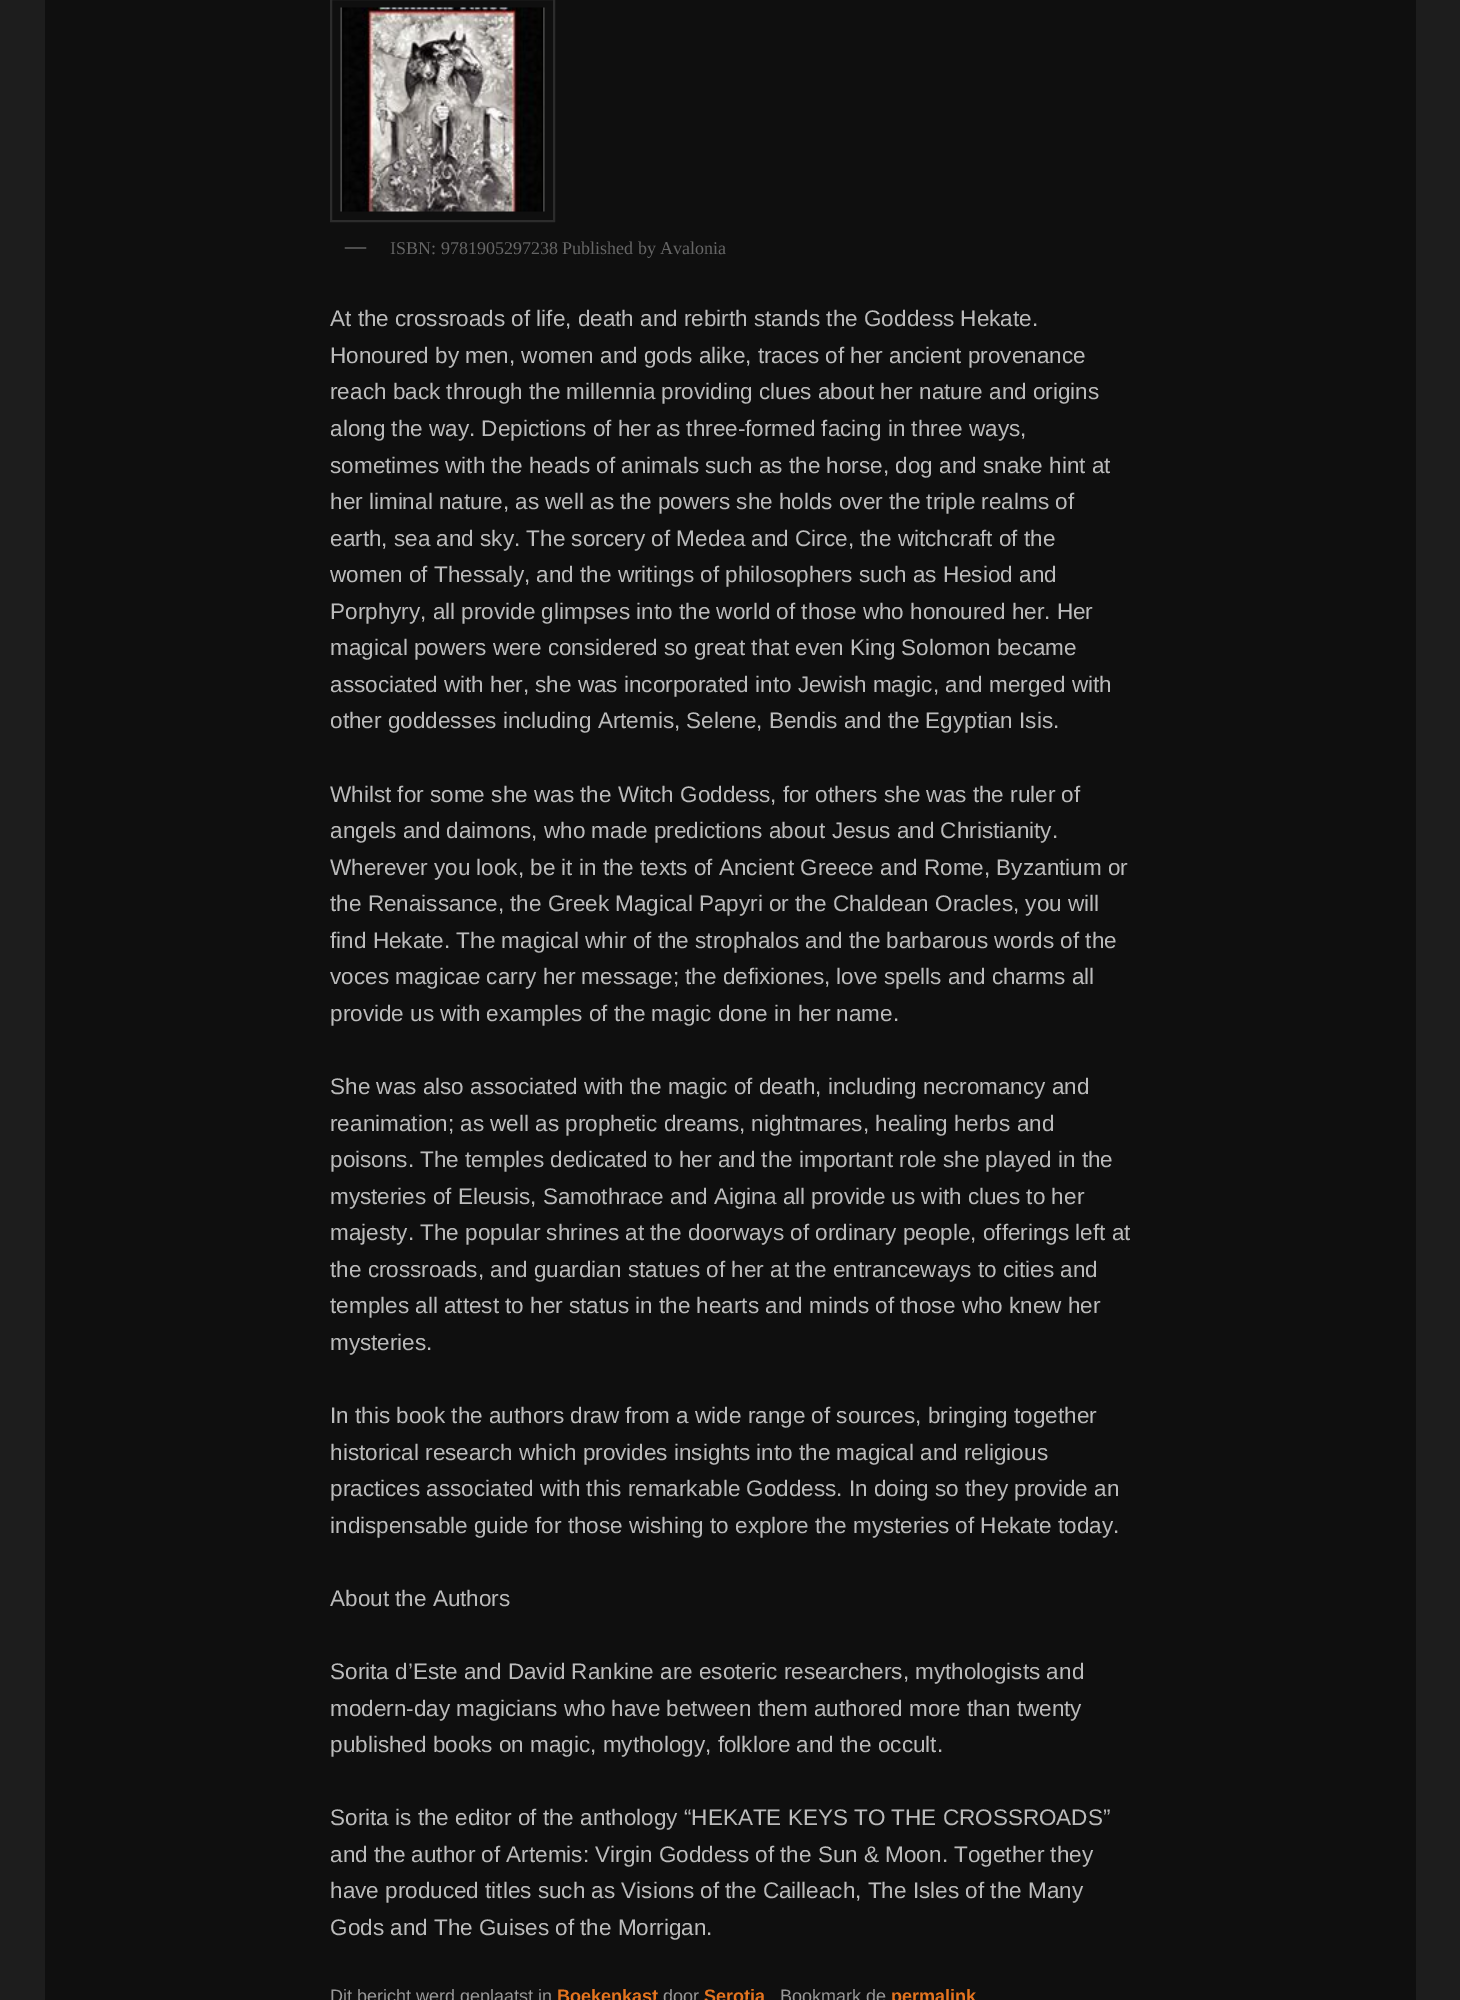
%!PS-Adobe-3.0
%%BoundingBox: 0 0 1460 2000
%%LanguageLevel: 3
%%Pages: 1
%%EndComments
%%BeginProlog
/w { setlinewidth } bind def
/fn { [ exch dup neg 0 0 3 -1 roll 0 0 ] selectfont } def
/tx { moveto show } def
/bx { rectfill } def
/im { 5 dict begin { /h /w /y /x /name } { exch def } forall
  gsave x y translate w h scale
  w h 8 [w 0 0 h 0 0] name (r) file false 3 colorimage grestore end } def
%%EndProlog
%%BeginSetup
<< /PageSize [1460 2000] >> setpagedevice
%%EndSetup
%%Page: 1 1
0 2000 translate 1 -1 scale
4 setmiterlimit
0.114 setgray
0 0 1460 2000 bx
0.059 setgray
45 0 1371 2000 bx
0.173 setgray
2 w
331 -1 223 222 rectstroke
(image0.raw) 340 7 205 205 im
/LiberationSerif-Bold 21 fn
0.4 setgray
(—) 345 253 tx
/LiberationSerif-Regular 18 fn
(ISBN: 9781905297238 Published by Avalonia) 390 254 tx
/LiberationSans-Regular 22.5 fn
0.733 setgray
(At the crossroads of life, death and rebirth stands the Goddess Hekate.) 330 326 tx
(Honoured by men, women and gods alike, traces of her ancient provenance) 330 363 tx
(reach back through the millennia providing clues about her nature and origins) 330 399 tx
(along the way. Depictions of her as three-formed facing in three ways,) 330 436 tx
(sometimes with the heads of animals such as the horse, dog and snake hint at) 330 473 tx
(her liminal nature, as well as the powers she holds over the triple realms of) 330 509 tx
(earth, sea and sky. The sorcery of Medea and Circe, the witchcraft of the) 330 546 tx
(women of Thessaly, and the writings of philosophers such as Hesiod and) 330 582 tx
(Porphyry, all provide glimpses into the world of those who honoured her. Her) 330 619 tx
(magical powers were considered so great that even King Solomon became) 330 655 tx
(associated with her, she was incorporated into Jewish magic, and merged with) 330 692 tx
(other goddesses including Artemis, Selene, Bendis and the Egyptian Isis.) 330 728 tx
(Whilst for some she was the Witch Goddess, for others she was the ruler of) 330 802 tx
(angels and daimons, who made predictions about Jesus and Christianity.) 330 838 tx
(Wherever you look, be it in the texts of Ancient Greece and Rome, Byzantium or) 330 875 tx
(the Renaissance, the Greek Magical Papyri or the Chaldean Oracles, you will) 330 911 tx
(find Hekate. The magical whir of the strophalos and the barbarous words of the) 330 948 tx
(voces magicae carry her message; the defixiones, love spells and charms all) 330 984 tx
(provide us with examples of the magic done in her name.) 330 1021 tx
(She was also associated with the magic of death, including necromancy and) 330 1094 tx
(reanimation; as well as prophetic dreams, nightmares, healing herbs and) 330 1131 tx
(poisons. The temples dedicated to her and the important role she played in the) 330 1167 tx
(mysteries of Eleusis, Samothrace and Aigina all provide us with clues to her) 330 1204 tx
(majesty. The popular shrines at the doorways of ordinary people, offerings left at) 330 1240 tx
(the crossroads, and guardian statues of her at the entranceways to cities and) 330 1277 tx
(temples all attest to her status in the hearts and minds of those who knew her) 330 1313 tx
(mysteries.) 330 1350 tx
(In this book the authors draw from a wide range of sources, bringing together) 330 1423 tx
(historical research which provides insights into the magical and religious) 330 1460 tx
(practices associated with this remarkable Goddess. In doing so they provide an) 330 1496 tx
(indispensable guide for those wishing to explore the mysteries of Hekate today.) 330 1533 tx
(About the Authors) 330 1606 tx
(Sorita d’Este and David Rankine are esoteric researchers, mythologists and) 330 1679 tx
(modern-day magicians who have between them authored more than twenty) 330 1716 tx
(published books on magic, mythology, folklore and the occult.) 330 1752 tx
(Sorita is the editor of the anthology “HEKATE KEYS TO THE CROSSROADS”) 330 1825 tx
(and the author of Artemis: Virgin Goddess of the Sun & Moon. Together they) 330 1862 tx
(have produced titles such as Visions of the Cailleach, The Isles of the Many) 330 1898 tx
(Gods and The Guises of the Morrigan.) 330 1935 tx
/LiberationSans-Regular 18 fn
0.6 setgray
(Dit bericht werd geplaatst in) 330 2002 tx
/LiberationSans-Bold 18 fn
0.894 0.455 0.122 setrgbcolor
(Boekenkast) 557 2002 tx
/LiberationSans-Regular 18 fn
0.6 setgray
(door) 663 2002 tx
/LiberationSans-Bold 18 fn
0.894 0.455 0.122 setrgbcolor
(Serotia) 704 2002 tx
/LiberationSans-Regular 18 fn
0.6 setgray
(Bookmark de) 780 2002 tx
/LiberationSans-Bold 18 fn
0.894 0.455 0.122 setrgbcolor
(permalink) 891 2002 tx
showpage
%%EOF
